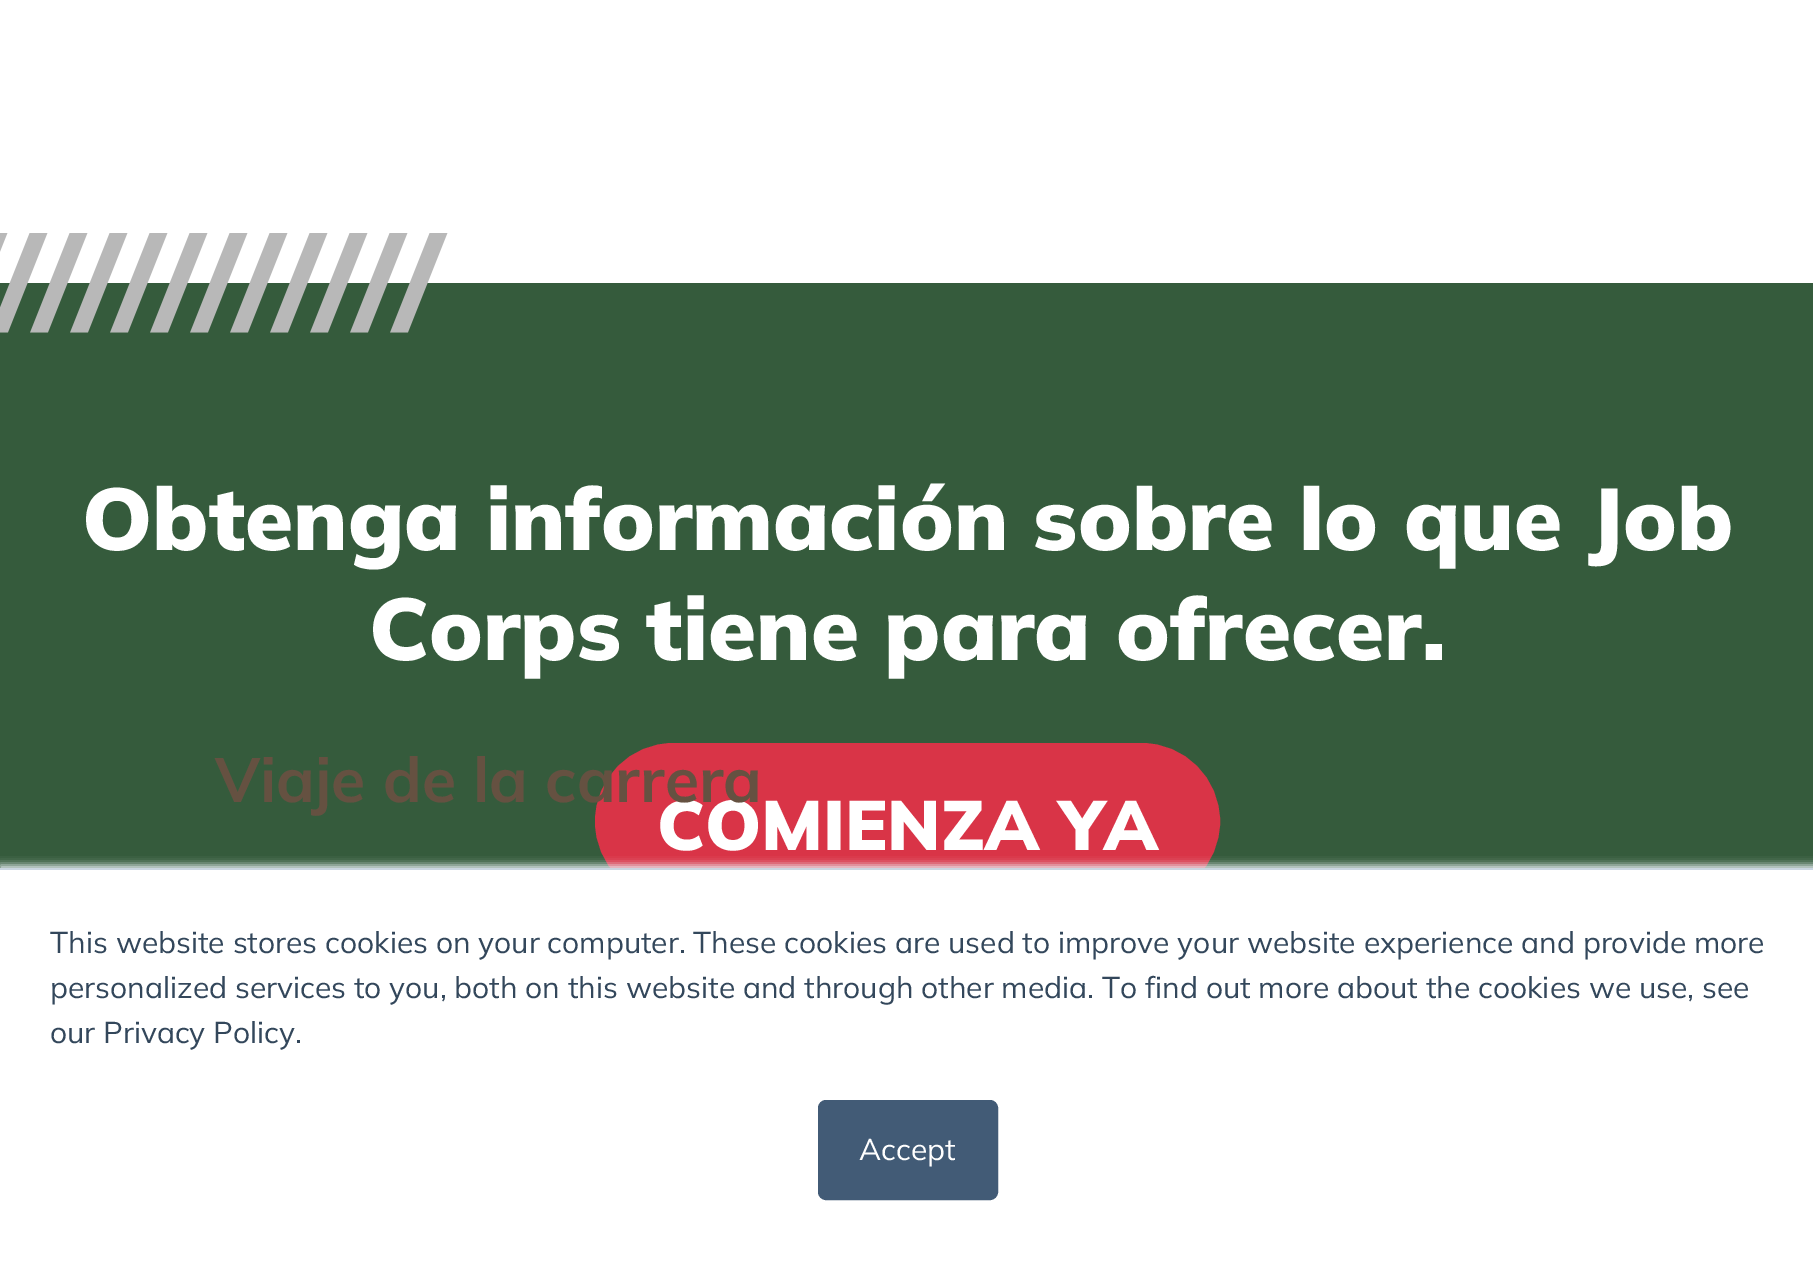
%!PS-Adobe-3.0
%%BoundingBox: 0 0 1813 1263
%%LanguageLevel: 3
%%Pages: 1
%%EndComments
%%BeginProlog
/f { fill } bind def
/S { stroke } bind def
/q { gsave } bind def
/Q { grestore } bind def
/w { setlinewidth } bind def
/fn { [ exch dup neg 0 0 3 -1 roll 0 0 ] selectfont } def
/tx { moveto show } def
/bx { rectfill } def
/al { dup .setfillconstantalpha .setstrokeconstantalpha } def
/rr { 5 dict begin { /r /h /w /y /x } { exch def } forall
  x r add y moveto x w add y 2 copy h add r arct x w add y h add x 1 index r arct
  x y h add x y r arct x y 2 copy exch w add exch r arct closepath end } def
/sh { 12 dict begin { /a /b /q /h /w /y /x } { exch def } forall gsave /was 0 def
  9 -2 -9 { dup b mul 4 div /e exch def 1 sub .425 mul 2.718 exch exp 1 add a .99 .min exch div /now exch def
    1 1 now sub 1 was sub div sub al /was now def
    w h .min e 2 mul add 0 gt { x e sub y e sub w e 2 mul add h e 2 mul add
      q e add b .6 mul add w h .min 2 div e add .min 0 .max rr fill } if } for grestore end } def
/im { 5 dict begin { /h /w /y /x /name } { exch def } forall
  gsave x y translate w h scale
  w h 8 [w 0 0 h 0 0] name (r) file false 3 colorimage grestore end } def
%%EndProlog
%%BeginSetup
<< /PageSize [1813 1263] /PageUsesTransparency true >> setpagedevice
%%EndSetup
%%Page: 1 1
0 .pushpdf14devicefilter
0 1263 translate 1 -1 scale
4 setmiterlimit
1 setgray
0 0 1813 1263 bx
0.208 0.357 0.235 setrgbcolor
0 283 1813 585 bx
(image0.raw) 0 233 448 100 im
/Mulish-Black 87.5 fn
1 setgray
(Obtenga información sobre lo que Job) 82 550 tx
(Corps tiene para ofrecer.) 369 660 tx
0.851 0.204 0.278 setrgbcolor
596.5 744.5 622 154 77 rr q f Q
3 w
S
/Mulish-Black 70 fn
1 setgray
(COMIENZA YA) 657 850 tx
/Mulish-Bold 62.5 fn
0.396 0.318 0.255 setrgbcolor
(Viaje de la carrera) 215 802 tx
0.918 0.941 0.965 setrgbcolor
0 865 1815 398 0 4 1 sh
0.796 0.839 0.886 setrgbcolor
0 868 1813 2 bx
1 setgray
0 870 1813 393 bx
/Mulish-Regular 30 fn
0.2 0.278 0.357 setrgbcolor
(This website stores cookies on your computer. These cookies are used to improve your website experience and provide more) 50 953 tx
(personalized services to you, both on this website and through other media. To find out more about the cookies we use, see) 50 998 tx
(our Privacy Policy.) 50 1043 tx
0.259 0.357 0.463 setrgbcolor
819.5 1101.5 177 97 6.5 rr q f Q
S
1 setgray
(Accept) 859 1160 tx
.poppdf14devicefilter showpage
%%EOF
